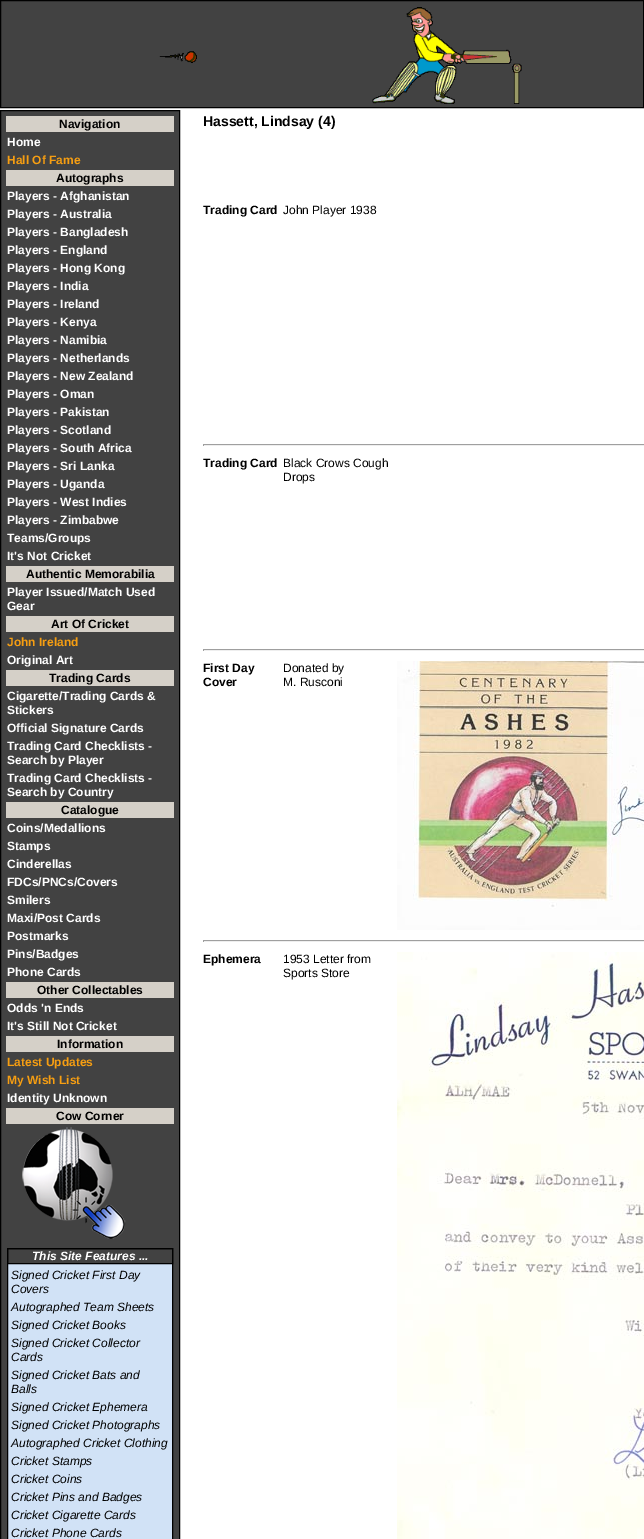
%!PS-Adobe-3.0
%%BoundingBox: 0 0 644 1539
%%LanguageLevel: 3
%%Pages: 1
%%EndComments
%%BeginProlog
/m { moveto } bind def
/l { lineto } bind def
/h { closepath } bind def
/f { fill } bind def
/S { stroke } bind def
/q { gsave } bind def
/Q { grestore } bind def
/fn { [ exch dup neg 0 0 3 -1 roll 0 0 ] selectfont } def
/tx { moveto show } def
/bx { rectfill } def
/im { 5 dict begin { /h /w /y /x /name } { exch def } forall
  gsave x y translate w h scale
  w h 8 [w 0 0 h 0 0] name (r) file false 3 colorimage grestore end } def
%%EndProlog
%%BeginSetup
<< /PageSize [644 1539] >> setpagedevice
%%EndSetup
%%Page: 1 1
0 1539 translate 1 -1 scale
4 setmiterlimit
1 setgray
0 0 644 1539 bx
0.259 setgray
0.5 0.5 m 643.5 0.5 l 643.5 107.5 l 0.5 107.5 l h q f Q
0 setgray
S
(image0.raw) 159 7 363 97 im
0.259 setgray
0.5 110.5 m 179.5 110.5 l 179.5 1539.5 l 0.5 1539.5 l h q f Q
0 setgray
S
0.835 0.816 0.784 setrgbcolor
6 116 168 16 bx
/LiberationSans-Bold 12 fn
0 setgray
(Navigation) 59 128 tx
1 setgray
(Home) 7 146 tx
0.965 0.62 0.071 setrgbcolor
(Hall Of Fame) 7 164 tx
0.835 0.816 0.784 setrgbcolor
6 170 168 16 bx
0 setgray
(Autographs) 56 182 tx
1 setgray
(Players - Afghanistan) 7 200 tx
(Players - Australia) 7 218 tx
(Players - Bangladesh) 7 236 tx
(Players - England) 7 254 tx
(Players - Hong Kong) 7 272 tx
(Players - India) 7 290 tx
(Players - Ireland) 7 308 tx
(Players - Kenya) 7 326 tx
(Players - Namibia) 7 344 tx
(Players - Netherlands) 7 362 tx
(Players - New Zealand) 7 380 tx
(Players - Oman) 7 398 tx
(Players - Pakistan) 7 416 tx
(Players - Scotland) 7 434 tx
(Players - South Africa) 7 452 tx
(Players - Sri Lanka) 7 470 tx
(Players - Uganda) 7 488 tx
(Players - West Indies) 7 506 tx
(Players - Zimbabwe) 7 524 tx
(Teams/Groups) 7 542 tx
(It's Not Cricket) 7 560 tx
0.835 0.816 0.784 setrgbcolor
6 566 168 16 bx
0 setgray
(Authentic Memorabilia) 26 578 tx
1 setgray
(Player Issued/Match Used) 7 596 tx
(Gear) 7 610 tx
0.835 0.816 0.784 setrgbcolor
6 616 168 16 bx
0 setgray
(Art Of Cricket) 51 628 tx
0.965 0.62 0.071 setrgbcolor
(John Ireland) 7 646 tx
1 setgray
(Original Art) 7 664 tx
0.835 0.816 0.784 setrgbcolor
6 670 168 16 bx
0 setgray
(Trading Cards) 49 682 tx
1 setgray
(Cigarette/Trading Cards &) 7 700 tx
(Stickers) 7 714 tx
(Official Signature Cards) 7 732 tx
(Trading Card Checklists -) 7 750 tx
(Search by Player) 7 764 tx
(Trading Card Checklists -) 7 782 tx
(Search by Country) 7 796 tx
0.835 0.816 0.784 setrgbcolor
6 802 168 16 bx
0 setgray
(Catalogue) 61 814 tx
1 setgray
(Coins/Medallions) 7 832 tx
(Stamps) 7 850 tx
(Cinderellas) 7 868 tx
(FDCs/PNCs/Covers) 7 886 tx
(Smilers) 7 904 tx
(Maxi/Post Cards) 7 922 tx
(Postmarks) 7 940 tx
(Pins/Badges) 7 958 tx
(Phone Cards) 7 976 tx
0.835 0.816 0.784 setrgbcolor
6 982 168 16 bx
0 setgray
(Other Collectables) 37 994 tx
1 setgray
(Odds 'n Ends) 7 1012 tx
(It's Still Not Cricket) 7 1030 tx
0.835 0.816 0.784 setrgbcolor
6 1036 168 16 bx
0 setgray
(Information) 57 1048 tx
0.965 0.62 0.071 setrgbcolor
(Latest Updates) 7 1066 tx
(My Wish List) 7 1084 tx
1 setgray
(Identity Unknown) 7 1102 tx
0.835 0.816 0.784 setrgbcolor
6 1108 168 16 bx
0 setgray
(Cow Corner) 56 1120 tx
(image1.raw) 22 1127 104 112 im
0.82 0.886 0.965 setrgbcolor
8 1264 164 275 bx
0 setgray
7.5 1248.5 165 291 rectstroke
7.5 1248.5 165 15 rectstroke
/LiberationSans-BoldItalic 12 fn
1 setgray
(This Site Features ...) 32 1260 tx
/LiberationSans-Italic 12 fn
0 setgray
(Signed Cricket First Day) 11 1279 tx
(Covers) 11 1293 tx
(Autographed Team Sheets) 11 1311 tx
(Signed Cricket Books) 11 1329 tx
(Signed Cricket Collector) 11 1347 tx
(Cards) 11 1361 tx
(Signed Cricket Bats and) 11 1379 tx
(Balls) 11 1393 tx
(Signed Cricket Ephemera) 11 1411 tx
(Signed Cricket Photographs) 11 1429 tx
(Autographed Cricket Clothing) 11 1447 tx
(Cricket Stamps) 11 1465 tx
(Cricket Coins) 11 1483 tx
(Cricket Pins and Badges) 11 1501 tx
(Cricket Cigarette Cards) 11 1519 tx
(Cricket Phone Cards) 11 1537 tx
/LiberationSans-Bold 14 fn
(Hassett, Lindsay \(4\)) 203 126 tx
/LiberationSans-Bold 12 fn
(Trading Card) 203 214 tx
/LiberationSans-Regular 12 fn
(John Player 1938) 283 214 tx
0.624 setgray
203 444 441 1 bx
0.933 setgray
203 445 441 1 bx
0.624 setgray
203 444 1 2 bx
/LiberationSans-Bold 12 fn
0 setgray
(Trading Card) 203 467 tx
/LiberationSans-Regular 12 fn
(Black Crows Cough) 283 467 tx
(Drops) 283 481 tx
0.624 setgray
203 649 441 1 bx
0.933 setgray
203 650 441 1 bx
0.624 setgray
203 649 1 2 bx
/LiberationSans-Bold 12 fn
0 setgray
(First Day) 203 672 tx
(Cover) 203 686 tx
/LiberationSans-Regular 12 fn
(Donated by) 283 672 tx
(M. Rusconi) 283 686 tx
(image2.raw) 397 661 247 269 im
0.624 setgray
203 940 441 1 bx
0.933 setgray
203 941 441 1 bx
0.624 setgray
203 940 1 2 bx
/LiberationSans-Bold 12 fn
0 setgray
(Ephemera) 203 963 tx
/LiberationSans-Regular 12 fn
(1953 Letter from) 283 963 tx
(Sports Store) 283 977 tx
(image3.raw) 397 952 247 587 im
showpage
%%EOF
